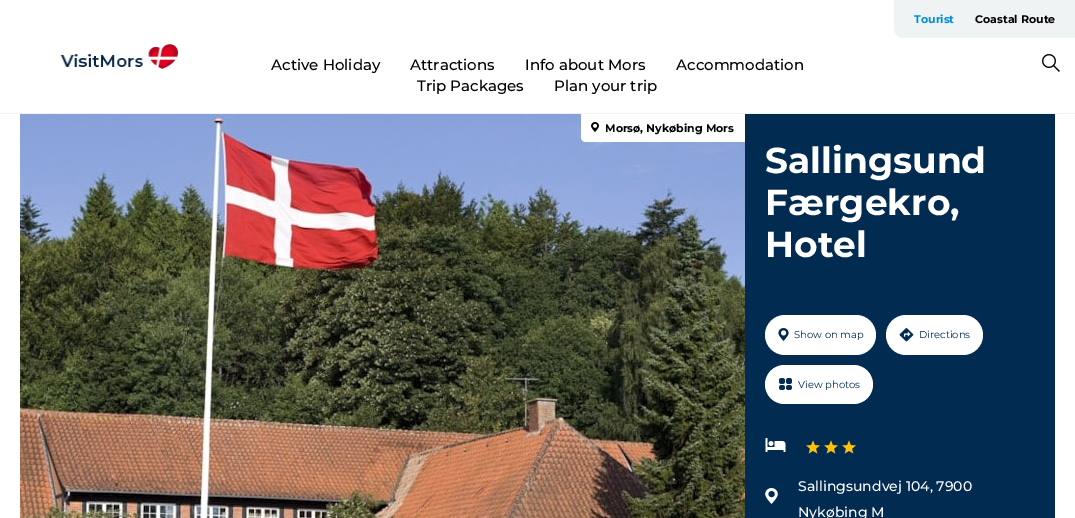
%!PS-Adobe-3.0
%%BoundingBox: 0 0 1075 518
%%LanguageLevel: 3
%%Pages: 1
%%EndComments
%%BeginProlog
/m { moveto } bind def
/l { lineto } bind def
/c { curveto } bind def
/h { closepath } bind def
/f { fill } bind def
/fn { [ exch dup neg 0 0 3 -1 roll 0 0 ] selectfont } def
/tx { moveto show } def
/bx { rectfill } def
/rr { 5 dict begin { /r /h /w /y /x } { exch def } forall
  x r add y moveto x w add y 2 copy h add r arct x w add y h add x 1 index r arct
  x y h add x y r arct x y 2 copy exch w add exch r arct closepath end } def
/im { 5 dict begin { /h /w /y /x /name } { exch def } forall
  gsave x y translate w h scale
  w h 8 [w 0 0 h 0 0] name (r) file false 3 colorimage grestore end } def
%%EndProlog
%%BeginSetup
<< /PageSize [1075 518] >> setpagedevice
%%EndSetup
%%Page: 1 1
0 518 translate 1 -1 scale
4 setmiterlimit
1 setgray
0 0 1075 518 bx
0.941 0.945 0.953 setrgbcolor
0 113 1075 1 bx
(image0.raw) 60 44 119 25 im
0.937 0.953 0.957 setrgbcolor
894 0 m 1075 0 l 1075 38 l 904 38 l 898.5 38 894 33.5 894 28 c h f
/Montserrat-Bold 11 fn
0 0.553 0.839 setrgbcolor
(Tourist) 914 23 tx
0 setgray
(Coastal Route) 975 23 tx
/Montserrat-Medium 15 fn
(Active Holiday) 271 70 tx
(Attractions) 410 70 tx
(Info about Mors) 525 70 tx
(Accommodation) 676 70 tx
(Trip Packages) 417 91 tx
(Plan your trip) 554 91 tx
(image1.raw) 1042 54 18 18 im
(image2.raw) 20 114 725 404 im
1 setgray
581 114 m 745 114 l 745 142 l 586 142 l 583 142 581 140 581 137 c h f
(image3.raw) 591 122 8 10 im
/Montserrat-Bold 11 fn
0 setgray
(Morsø, Nykøbing Mors) 605 132 tx
0.008 0.169 0.322 setrgbcolor
745 114 310 404 bx
/Montserrat-Bold 36 fn
1 setgray
(Sallingsund) 765 173 tx
(Færgekro,) 765 215 tx
(Hotel) 765 257 tx
765 315 111 40 20 rr f
(image4.raw) 778 328 11 13 im
/Montserrat-Regular 10 fn
0.008 0.169 0.322 setrgbcolor
(Show on map) 794 338 tx
1 setgray
886 315 97 40 20 rr f
(image5.raw) 899 328 15 14 im
0.008 0.169 0.322 setrgbcolor
(Directions) 919 338 tx
1 setgray
765 365 108 39 19.5 rr f
(image6.raw) 779 378 13 12 im
0.008 0.169 0.322 setrgbcolor
(View photos) 798 388 tx
(image7.raw) 765 438 21 14 im
(image8.raw) 806 440 14 14 im
(image8.raw) 824 440 14 14 im
(image8.raw) 842 440 14 14 im
(image9.raw) 765 488 13 16 im
/Montserrat-Medium 14 fn
1 setgray
(Sallingsundvej 104, 7900) 798 491 tx
(Nykøbing M) 798 517 tx
showpage
%%EOF
